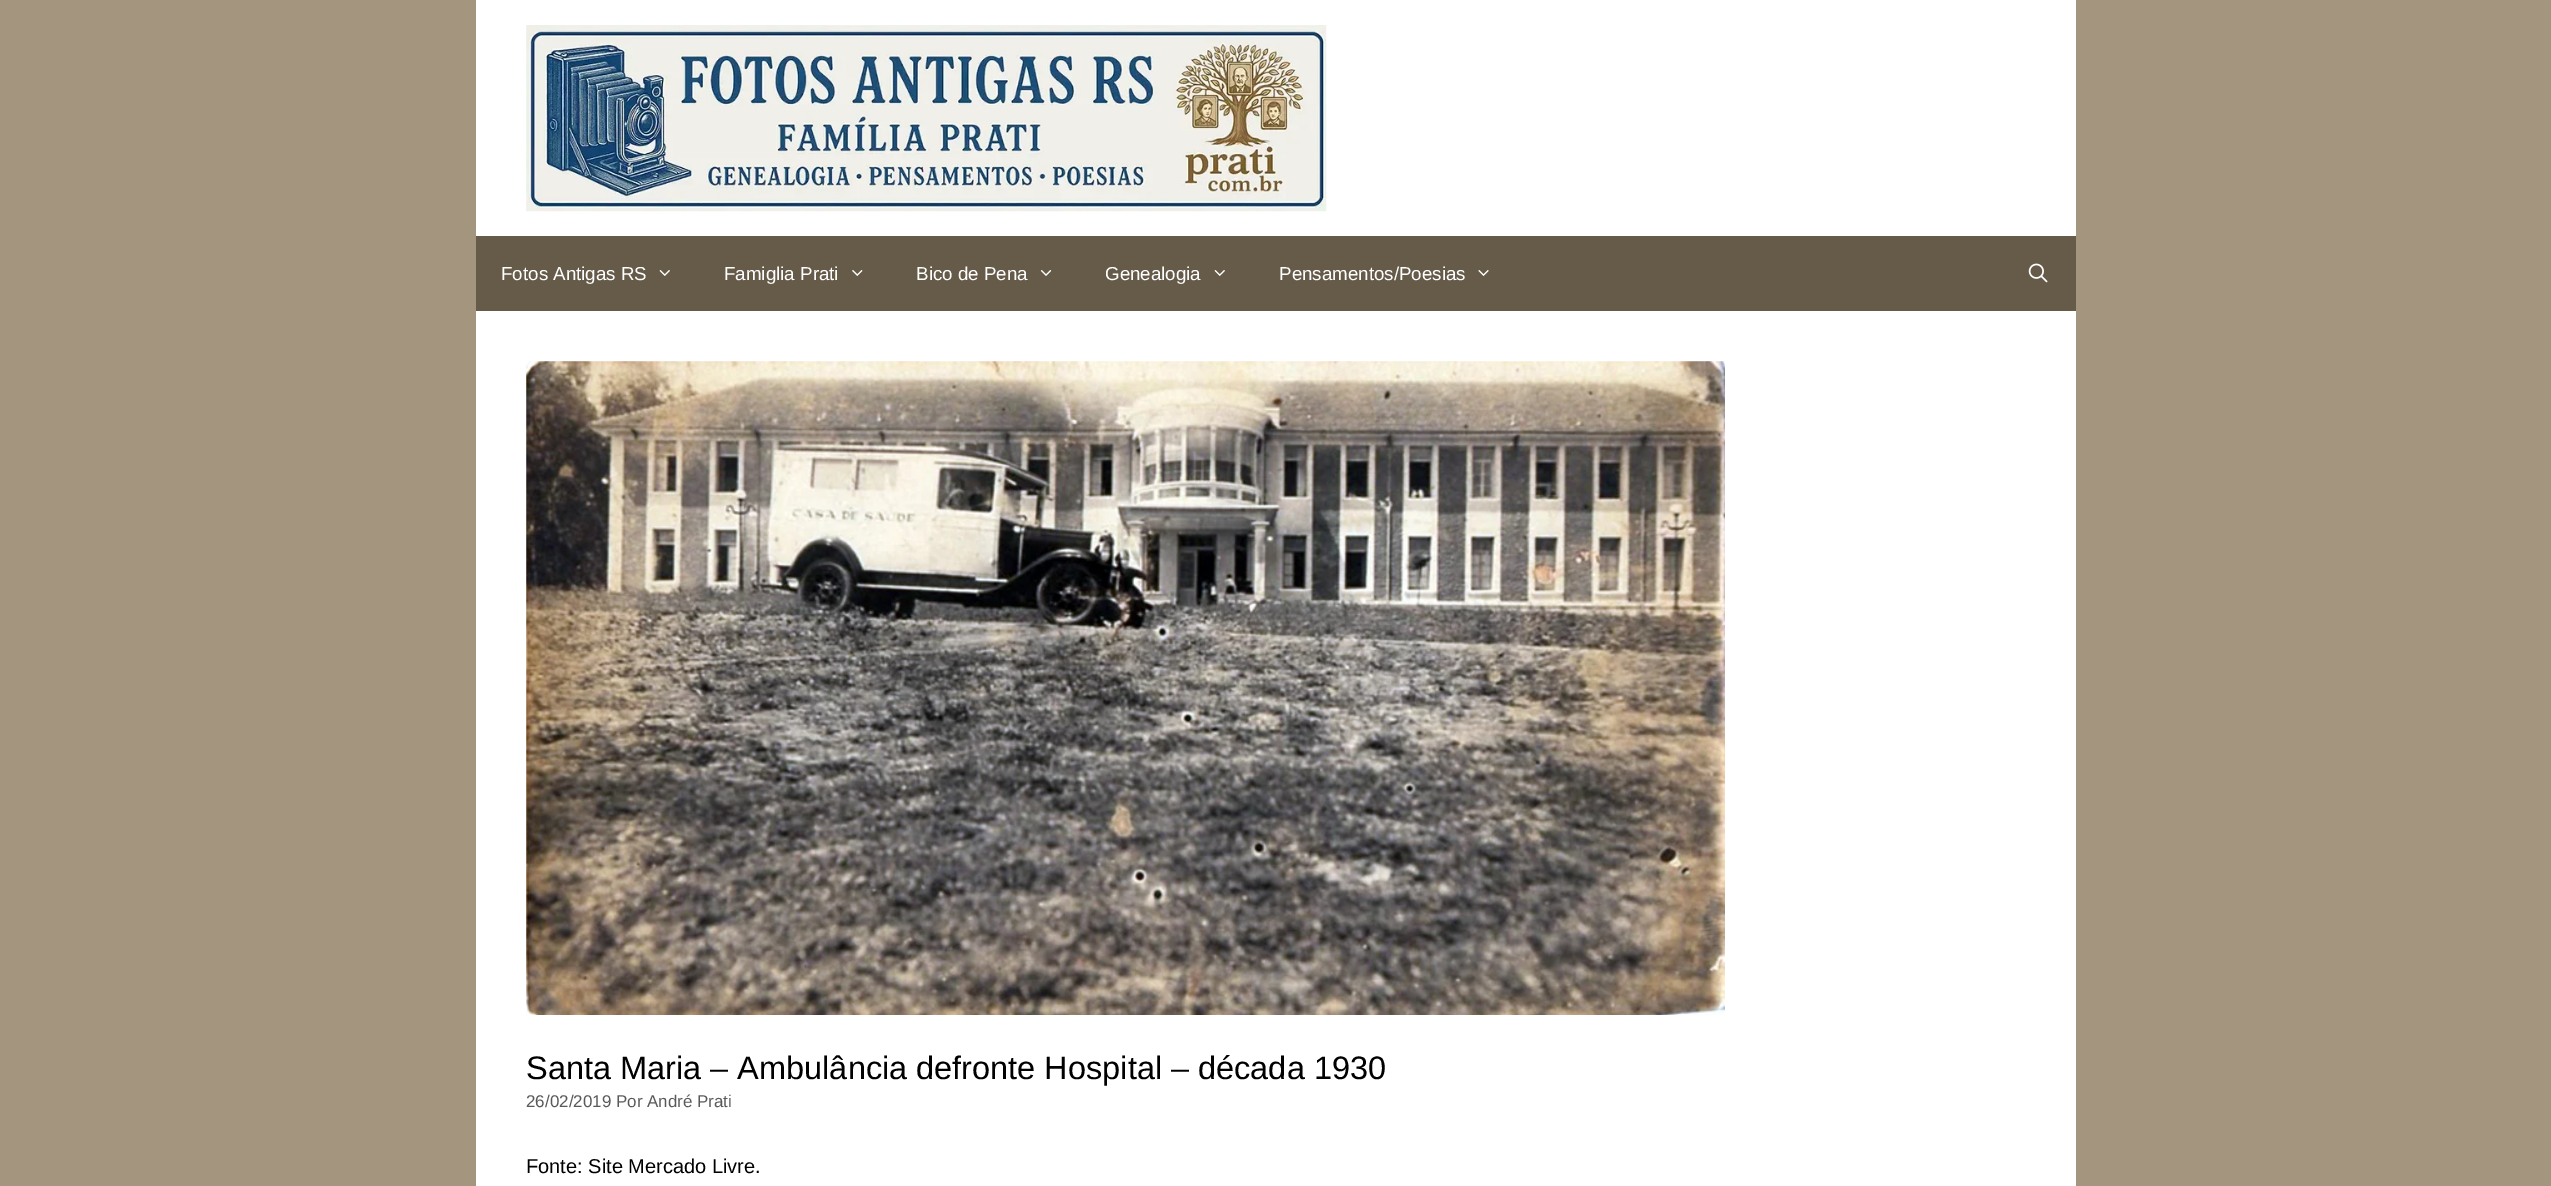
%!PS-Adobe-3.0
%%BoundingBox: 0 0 2551 1186
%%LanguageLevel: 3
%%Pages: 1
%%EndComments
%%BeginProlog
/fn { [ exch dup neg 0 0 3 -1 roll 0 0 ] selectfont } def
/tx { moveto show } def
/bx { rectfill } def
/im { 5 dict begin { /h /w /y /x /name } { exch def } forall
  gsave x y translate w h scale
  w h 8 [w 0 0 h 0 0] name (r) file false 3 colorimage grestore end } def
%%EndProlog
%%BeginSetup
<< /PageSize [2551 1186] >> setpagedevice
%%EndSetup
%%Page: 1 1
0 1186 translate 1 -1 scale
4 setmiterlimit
0.639 0.584 0.494 setrgbcolor
0 0 2551 1186 bx
1 setgray
476 0 1600 236 bx
(image0.raw) 526 25 801 187 im
0.4 0.353 0.286 setrgbcolor
476 236 1600 75 bx
/LiberationSans-Regular 18.75 fn
1 setgray
(Fotos Antigas RS) 501 280 tx
(image1.raw) 659 270 11 6 im
(Famiglia Prati) 724 280 tx
(image2.raw) 852 270 11 6 im
(Bico de Pena) 916 280 tx
(image3.raw) 1040 270 12 6 im
(Genealogia) 1105 280 tx
(image1.raw) 1214 270 11 6 im
(Pensamentos/Poesias) 1279 280 tx
(image4.raw) 1478 270 11 6 im
(image5.raw) 2028 263 20 20 im
476 311 1600 875 bx
(image6.raw) 526 361 1199 654 im
/LiberationSans-Regular 32.5 fn
0 setgray
(Santa Maria – Ambulância defronte Hospital – década 1930) 526 1079 tx
/LiberationSans-Regular 17 fn
0.349 setgray
(26/02/2019 Por André Prati) 526 1107 tx
/LiberationSans-Regular 20 fn
0 setgray
(Fonte: Site Mercado Livre.) 526 1173 tx
showpage
%%EOF
